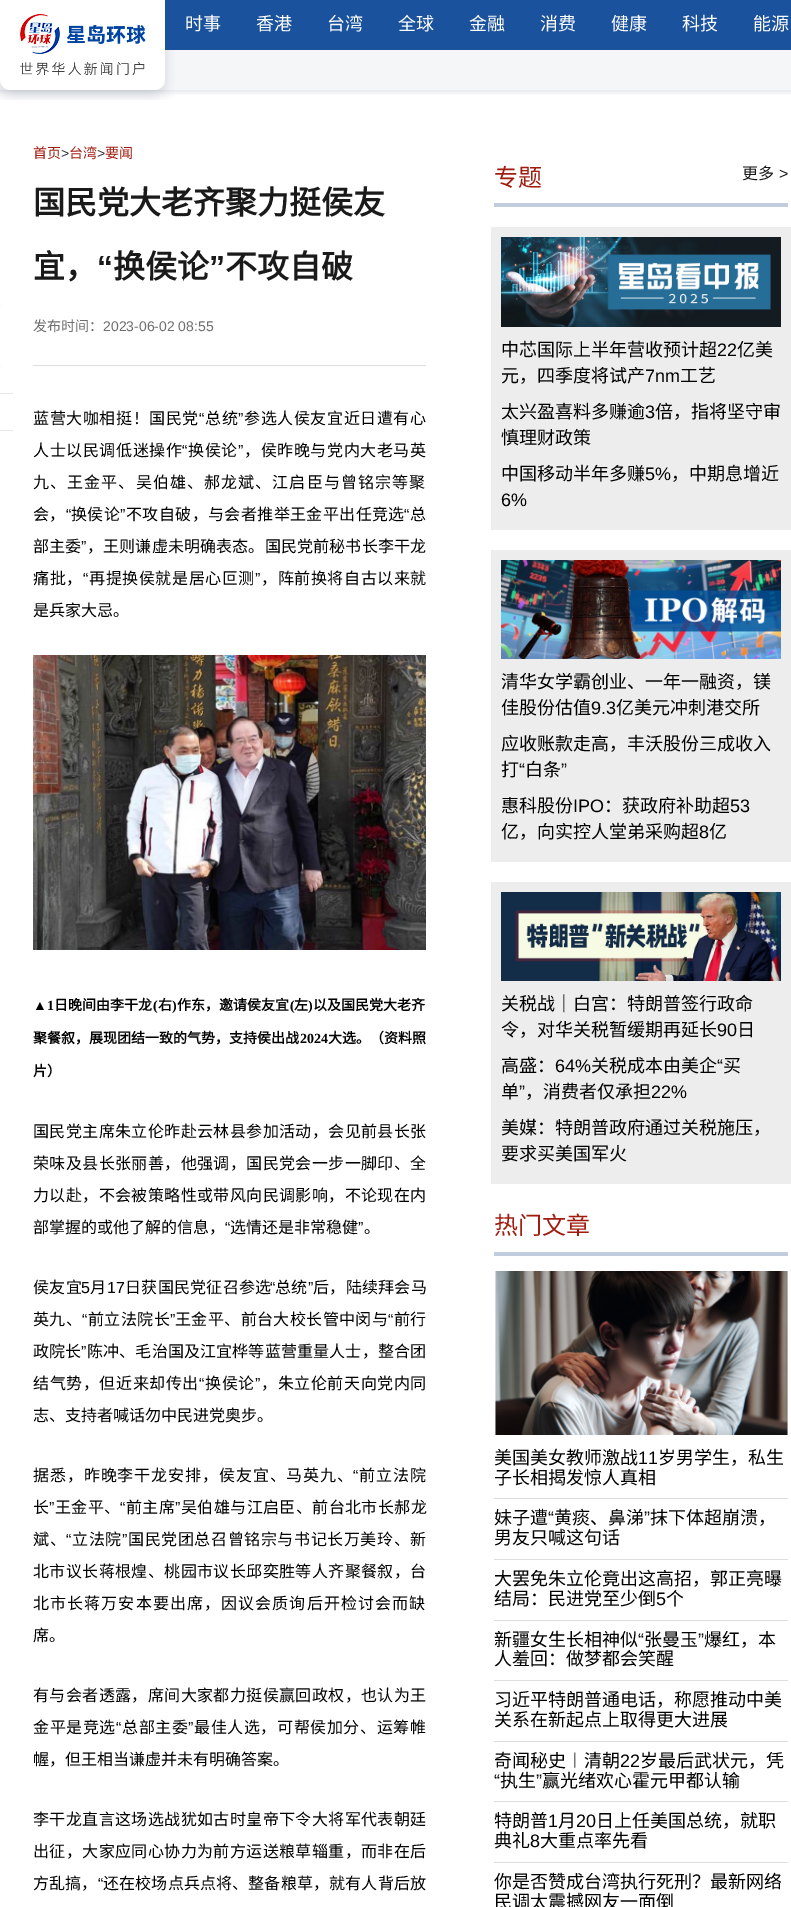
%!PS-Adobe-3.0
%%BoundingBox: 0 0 791 1907
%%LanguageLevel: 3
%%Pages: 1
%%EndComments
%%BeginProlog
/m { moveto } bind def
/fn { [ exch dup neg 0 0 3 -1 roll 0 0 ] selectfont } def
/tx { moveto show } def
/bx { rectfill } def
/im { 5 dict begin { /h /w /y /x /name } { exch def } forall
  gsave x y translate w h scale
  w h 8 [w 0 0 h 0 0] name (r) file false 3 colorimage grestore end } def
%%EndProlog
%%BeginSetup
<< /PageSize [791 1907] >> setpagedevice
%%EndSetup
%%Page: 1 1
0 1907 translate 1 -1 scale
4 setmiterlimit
1 setgray
0 0 791 1907 bx
(image0.raw) 165 0 626 95 im
(image1.raw) 0 0 165 100 im
(image2.raw) 165 50 10 49 im
/NotoSansCJKSC-Regular 18 fn
(时事) 185 30 tx
(香港) 256 30 tx
(台湾) 327 30 tx
(全球) 398 30 tx
(金融) 469 30 tx
(消费) 540 30 tx
(健康) 611 30 tx
(科技) 682 30 tx
(能源) 753 30 tx
0.902 setgray
0 393 13 1 bx
0.961 setgray
0 305 1 1 bx
0 366 1 1 bx
0.902 setgray
0 430 13 1 bx
/NotoSansCJKSC-Regular 14 fn
0.627 0.11 0.055 setrgbcolor
(首页) 33 158 tx
/LiberationSans-Regular 14 fn
0.2 setgray
(>) 61 158 tx
/NotoSansCJKSC-Regular 14 fn
0.627 0.11 0.055 setrgbcolor
(台湾) 69 158 tx
/LiberationSans-Regular 14 fn
0.2 setgray
(>) 97 158 tx
/NotoSansCJKSC-Regular 14 fn
0.627 0.11 0.055 setrgbcolor
(要闻) 105 158 tx
0.871 setgray
33 365 393 1 bx
/NotoSansCJKSC-Bold 32 fn
0.102 setgray
(国民党大老齐聚力挺侯友) 33 214 tx
(宜，) 33 278 tx
/LiberationSans-Bold 32 fn
(“) 97 278 tx
/NotoSansCJKSC-Bold 32 fn
(换侯论) 113 278 tx
/LiberationSans-Bold 32 fn
(”) 209 278 tx
/NotoSansCJKSC-Bold 32 fn
(不攻自破) 225 278 tx
/NotoSansCJKSC-Regular 14 fn
0.431 setgray
(发布时间：) 33 331 tx
/LiberationSans-Regular 14 fn
(2023-06-02 08:55) 103 331 tx
/NotoSansCJKSC-Regular 16 fn
0 setgray
33 424 m 0.6 0 (蓝营大咖相挺！国民党) ashow
/LiberationSans-Regular 16 fn
199 424 m 0.6 0 (“) ashow
/NotoSansCJKSC-Regular 16 fn
205 424 m 0.6 0 (总统) ashow
/LiberationSans-Regular 16 fn
238 424 m 0.6 0 (”) ashow
/NotoSansCJKSC-Regular 16 fn
244 424 m 0.6 0 (参选人侯友宜近日遭有心) ashow
33 456 m 0.6 0 (人士以民调低迷操作) ashow
/LiberationSans-Regular 16 fn
182 456 m 0.6 0 (“) ashow
/NotoSansCJKSC-Regular 16 fn
188 456 m 0.6 0 (换侯论) ashow
/LiberationSans-Regular 16 fn
238 456 m 0.6 0 (”) ashow
/NotoSansCJKSC-Regular 16 fn
244 456 m 0.6 0 (，侯昨晚与党内大老马英) ashow
33 488 m 1.1 0 (九、王金平、吴伯雄、郝龙斌、江启臣与曾铭宗等聚) ashow
33 520 m 0.4 0 (会，) ashow
/LiberationSans-Regular 16 fn
66 520 m 0.4 0 (“) ashow
/NotoSansCJKSC-Regular 16 fn
71 520 m 0.4 0 (换侯论) ashow
/LiberationSans-Regular 16 fn
120 520 m 0.4 0 (”) ashow
/NotoSansCJKSC-Regular 16 fn
126 520 m 0.4 0 (不攻自破，与会者推举王金平出任竞选) ashow
/LiberationSans-Regular 16 fn
404 520 m 0.4 0 (“) ashow
/NotoSansCJKSC-Regular 16 fn
410 520 m 0.4 0 (总) ashow
33 552 m 0.15 0 (部主委) ashow
/LiberationSans-Regular 16 fn
81 552 m 0.15 0 (”) ashow
/NotoSansCJKSC-Regular 16 fn
87 552 m 0.15 0 (，王则谦虚未明确表态。国民党前秘书长李干龙) ashow
33 584 m 0.6 0 (痛批，) ashow
/LiberationSans-Regular 16 fn
83 584 m 0.6 0 (“) ashow
/NotoSansCJKSC-Regular 16 fn
89 584 m 0.6 0 (再提换侯就是居心叵测) ashow
/LiberationSans-Regular 16 fn
255 584 m 0.6 0 (”) ashow
/NotoSansCJKSC-Regular 16 fn
261 584 m 0.6 0 (，阵前换将自古以来就) ashow
(是兵家大忌。) 33 616 tx
(image3.raw) 33 655 393 295 im
/LiberationSerif-Bold 14 fn
(▲1) 33 1010 tx
/NotoSansCJKSC-Bold 14 fn
(日晚间由李干龙) 54 1010 tx
/LiberationSerif-Bold 14 fn
(\() 153 1010 tx
/NotoSansCJKSC-Bold 14 fn
(右) 158 1010 tx
/LiberationSerif-Bold 14 fn
(\)) 172 1010 tx
/NotoSansCJKSC-Bold 14 fn
(作东，邀请侯友宜) 177 1010 tx
/LiberationSerif-Bold 14 fn
(\() 290 1010 tx
/NotoSansCJKSC-Bold 14 fn
(左) 294 1010 tx
/LiberationSerif-Bold 14 fn
(\)) 308 1010 tx
/NotoSansCJKSC-Bold 14 fn
(以及国民党大老齐) 313 1010 tx
(聚餐叙，展现团结一致的气势，支持侯出战) 33 1043 tx
/LiberationSerif-Bold 14 fn
(2024) 300 1043 tx
/NotoSansCJKSC-Bold 14 fn
(大选。（资料照) 328 1043 tx
(片）) 33 1076 tx
/NotoSansCJKSC-Regular 16 fn
33 1137 m 0.4 0 (国民党主席朱立伦昨赴云林县参加活动，会见前县长张) ashow
33 1169 m 0.4 0 (荣味及县长张丽善，他强调，国民党会一步一脚印、全) ashow
33 1201 m 0.4 0 (力以赴，不会被策略性或带风向民调影响，不论现在内) ashow
(部掌握的或他了解的信息，) 33 1233 tx
/LiberationSans-Regular 16 fn
(“) 225 1233 tx
/NotoSansCJKSC-Regular 16 fn
(选情还是非常稳健) 230 1233 tx
/LiberationSans-Regular 16 fn
(”) 358 1233 tx
/NotoSansCJKSC-Regular 16 fn
(。) 364 1233 tx
33 1293 m 0.25 0 (侯友宜) ashow
/LiberationSans-Regular 16 fn
81 1293 m 0.25 0 (5) ashow
/NotoSansCJKSC-Regular 16 fn
90 1293 m 0.25 0 (月) ashow
/LiberationSans-Regular 16 fn
107 1293 m 0.25 0 (17) ashow
/NotoSansCJKSC-Regular 16 fn
125 1293 m 0.25 0 (日获国民党征召参选) ashow
/LiberationSans-Regular 16 fn
270 1293 m 0.25 0 (“) ashow
/NotoSansCJKSC-Regular 16 fn
275 1293 m 0.25 0 (总统) ashow
/LiberationSans-Regular 16 fn
308 1293 m 0.25 0 (”) ashow
/NotoSansCJKSC-Regular 16 fn
313 1293 m 0.25 0 (后，陆续拜会马) ashow
33 1325 m 0.4 0 (英九、) ashow
/LiberationSans-Regular 16 fn
82 1325 m 0.4 0 (“) ashow
/NotoSansCJKSC-Regular 16 fn
88 1325 m 0.4 0 (前立法院长) ashow
/LiberationSans-Regular 16 fn
170 1325 m 0.4 0 (”) ashow
/NotoSansCJKSC-Regular 16 fn
175 1325 m 0.4 0 (王金平、前台大校长管中闵与) ashow
/LiberationSans-Regular 16 fn
388 1325 m 0.4 0 (“) ashow
/NotoSansCJKSC-Regular 16 fn
394 1325 m 0.4 0 (前行) ashow
33 1357 m 0.15 0 (政院长) ashow
/LiberationSans-Regular 16 fn
81 1357 m 0.15 0 (”) ashow
/NotoSansCJKSC-Regular 16 fn
87 1357 m 0.15 0 (陈冲、毛治国及江宜桦等蓝营重量人士，整合团) ashow
33 1389 m 0.6 0 (结气势，但近来却传出) ashow
/LiberationSans-Regular 16 fn
199 1389 m 0.6 0 (“) ashow
/NotoSansCJKSC-Regular 16 fn
205 1389 m 0.6 0 (换侯论) ashow
/LiberationSans-Regular 16 fn
255 1389 m 0.6 0 (”) ashow
/NotoSansCJKSC-Regular 16 fn
261 1389 m 0.6 0 (，朱立伦前天向党内同) ashow
(志、支持者喊话勿中民进党奥步。) 33 1421 tx
33 1481 m 0.9 0 (据悉，昨晚李干龙安排，侯友宜、马英九、) ashow
/LiberationSans-Regular 16 fn
353 1481 m 0.9 0 (“) ashow
/NotoSansCJKSC-Regular 16 fn
359 1481 m 0.9 0 (前立法院) ashow
33 1513 m 0.4 0 (长) ashow
/LiberationSans-Regular 16 fn
49 1513 m 0.4 0 (”) ashow
/NotoSansCJKSC-Regular 16 fn
55 1513 m 0.4 0 (王金平、) ashow
/LiberationSans-Regular 16 fn
120 1513 m 0.4 0 (“) ashow
/NotoSansCJKSC-Regular 16 fn
126 1513 m 0.4 0 (前主席) ashow
/LiberationSans-Regular 16 fn
175 1513 m 0.4 0 (”) ashow
/NotoSansCJKSC-Regular 16 fn
181 1513 m 0.4 0 (吴伯雄与江启臣、前台北市长郝龙) ashow
33 1545 m 0.6 0 (斌、) ashow
/LiberationSans-Regular 16 fn
66 1545 m 0.6 0 (“) ashow
/NotoSansCJKSC-Regular 16 fn
72 1545 m 0.6 0 (立法院) ashow
/LiberationSans-Regular 16 fn
122 1545 m 0.6 0 (”) ashow
/NotoSansCJKSC-Regular 16 fn
128 1545 m 0.6 0 (国民党团总召曾铭宗与书记长万美玲、新) ashow
33 1577 m 0.4 0 (北市议长蒋根煌、桃园市议长邱奕胜等人齐聚餐叙，台) ashow
33 1609 m 1.1 0 (北市长蒋万安本要出席，因议会质询后开检讨会而缺) ashow
(席。) 33 1641 tx
33 1701 m 0.4 0 (有与会者透露，席间大家都力挺侯赢回政权，也认为王) ashow
33 1733 m 0.6 0 (金平是竞选) ashow
/LiberationSans-Regular 16 fn
116 1733 m 0.6 0 (“) ashow
/NotoSansCJKSC-Regular 16 fn
122 1733 m 0.6 0 (总部主委) ashow
/LiberationSans-Regular 16 fn
188 1733 m 0.6 0 (”) ashow
/NotoSansCJKSC-Regular 16 fn
194 1733 m 0.6 0 (最佳人选，可帮侯加分、运筹帷) ashow
(幄，但王相当谦虚并未有明确答案。) 33 1765 tx
33 1825 m 0.4 0 (李干龙直言这场选战犹如古时皇帝下令大将军代表朝廷) ashow
33 1857 m 0.4 0 (出征，大家应同心协力为前方运送粮草辎重，而非在后) ashow
33 1889 m 0.15 0 (方乱搞，) ashow
/LiberationSans-Regular 16 fn
98 1889 m 0.15 0 (“) ashow
/NotoSansCJKSC-Regular 16 fn
103 1889 m 0.15 0 (还在校场点兵点将、整备粮草，就有人背后放) ashow
0.757 0.8 0.875 setrgbcolor
494 203 294 4 bx
/NotoSansCJKSC-Regular 24 fn
0.627 0.11 0.055 setrgbcolor
(专题) 494 186 tx
/NotoSansCJKSC-Regular 16 fn
0.102 setgray
(更多) 742 179 tx
/LiberationSans-Regular 16 fn
(>) 779 179 tx
0.929 setgray
491 227 300 303 bx
(image4.raw) 501 237 280 90 im
/NotoSansCJKSC-Regular 18 fn
0 setgray
(中芯国际上半年营收预计超) 501 356 tx
/LiberationSans-Regular 18 fn
(22) 717 356 tx
/NotoSansCJKSC-Regular 18 fn
(亿美) 737 356 tx
(元，四季度将试产) 501 382 tx
/LiberationSans-Regular 18 fn
(7nm) 645 382 tx
/NotoSansCJKSC-Regular 18 fn
(工艺) 680 382 tx
(太兴盈喜料多赚逾) 501 418 tx
/LiberationSans-Regular 18 fn
(3) 645 418 tx
/NotoSansCJKSC-Regular 18 fn
(倍，指将坚守审) 655 418 tx
(慎理财政策) 501 444 tx
(中国移动半年多赚) 501 480 tx
/LiberationSans-Regular 18 fn
(5%) 645 480 tx
/NotoSansCJKSC-Regular 18 fn
(，中期息增近) 671 480 tx
/LiberationSans-Regular 18 fn
(6%) 501 506 tx
0.929 setgray
491 550 300 312 bx
(image5.raw) 501 560 280 99 im
/NotoSansCJKSC-Regular 18 fn
0 setgray
(清华女学霸创业、一年一融资，镁) 501 688 tx
(佳股份估值) 501 714 tx
/LiberationSans-Regular 18 fn
(9.3) 591 714 tx
/NotoSansCJKSC-Regular 18 fn
(亿美元冲刺港交所) 616 714 tx
(应收账款走高，丰沃股份三成收入) 501 750 tx
(打) 501 776 tx
/LiberationSans-Regular 18 fn
(“) 519 776 tx
/NotoSansCJKSC-Regular 18 fn
(白条) 525 776 tx
/LiberationSans-Regular 18 fn
(”) 561 776 tx
/NotoSansCJKSC-Regular 18 fn
(惠科股份) 501 812 tx
/LiberationSans-Regular 18 fn
(IPO) 573 812 tx
/NotoSansCJKSC-Regular 18 fn
(：获政府补助超) 604 812 tx
/LiberationSans-Regular 18 fn
(53) 730 812 tx
/NotoSansCJKSC-Regular 18 fn
(亿，向实控人堂弟采购超) 501 838 tx
/LiberationSans-Regular 18 fn
(8) 699 838 tx
/NotoSansCJKSC-Regular 18 fn
(亿) 709 838 tx
0.929 setgray
491 882 300 302 bx
(image6.raw) 501 892 280 89 im
0 setgray
(关税战｜白宫：特朗普签行政命) 501 1010 tx
(令，对华关税暂缓期再延长) 501 1036 tx
/LiberationSans-Regular 18 fn
(90) 717 1036 tx
/NotoSansCJKSC-Regular 18 fn
(日) 737 1036 tx
(高盛：) 501 1072 tx
/LiberationSans-Regular 18 fn
(64%) 555 1072 tx
/NotoSansCJKSC-Regular 18 fn
(关税成本由美企) 591 1072 tx
/LiberationSans-Regular 18 fn
(“) 717 1072 tx
/NotoSansCJKSC-Regular 18 fn
(买) 723 1072 tx
(单) 501 1098 tx
/LiberationSans-Regular 18 fn
(”) 519 1098 tx
/NotoSansCJKSC-Regular 18 fn
(，消费者仅承担) 525 1098 tx
/LiberationSans-Regular 18 fn
(22%) 651 1098 tx
/NotoSansCJKSC-Regular 18 fn
(美媒：特朗普政府通过关税施压，) 501 1134 tx
(要求买美国军火) 501 1160 tx
0.757 0.8 0.875 setrgbcolor
494 1252 294 4 bx
/NotoSansCJKSC-Regular 24 fn
0.627 0.11 0.055 setrgbcolor
(热门文章) 494 1234 tx
(image7.raw) 495 1271 293 164 im
0.867 setgray
494 1498 294 1 bx
/NotoSansCJKSC-Regular 18 fn
0 setgray
(美国美女教师激战) 494 1464 tx
/LiberationSans-Regular 18 fn
(11) 638 1464 tx
/NotoSansCJKSC-Regular 18 fn
(岁男学生，私生) 658 1464 tx
(子长相揭发惊人真相) 494 1484 tx
0.867 setgray
494 1559 294 1 bx
0 setgray
(妹子遭) 494 1524 tx
/LiberationSans-Regular 18 fn
(“) 548 1524 tx
/NotoSansCJKSC-Regular 18 fn
(黄痰、鼻涕) 554 1524 tx
/LiberationSans-Regular 18 fn
(”) 644 1524 tx
/NotoSansCJKSC-Regular 18 fn
(抹下体超崩溃，) 650 1524 tx
(男友只喊这句话) 494 1544 tx
0.867 setgray
494 1620 294 1 bx
0 setgray
(大罢免朱立伦竟出这高招，郭正亮曝) 494 1585 tx
(结局：民进党至少倒) 494 1605 tx
/LiberationSans-Regular 18 fn
(5) 656 1605 tx
/NotoSansCJKSC-Regular 18 fn
(个) 666 1605 tx
0.867 setgray
494 1680 294 1 bx
0 setgray
(新疆女生长相神似) 494 1646 tx
/LiberationSans-Regular 18 fn
(“) 638 1646 tx
/NotoSansCJKSC-Regular 18 fn
(张曼玉) 644 1646 tx
/LiberationSans-Regular 18 fn
(”) 698 1646 tx
/NotoSansCJKSC-Regular 18 fn
(爆红，本) 704 1646 tx
(人羞回：做梦都会笑醒) 494 1665 tx
0.867 setgray
494 1741 294 1 bx
0 setgray
(习近平特朗普通电话，称愿推动中美) 494 1706 tx
(关系在新起点上取得更大进展) 494 1726 tx
0.867 setgray
494 1801 294 1 bx
0 setgray
(奇闻秘史︱清朝) 494 1767 tx
/LiberationSans-Regular 18 fn
(22) 620 1767 tx
/NotoSansCJKSC-Regular 18 fn
(岁最后武状元，凭) 640 1767 tx
/LiberationSans-Regular 18 fn
(“) 494 1787 tx
/NotoSansCJKSC-Regular 18 fn
(执生) 500 1787 tx
/LiberationSans-Regular 18 fn
(”) 536 1787 tx
/NotoSansCJKSC-Regular 18 fn
(赢光绪欢心霍元甲都认输) 542 1787 tx
0.867 setgray
494 1862 294 1 bx
0 setgray
(特朗普) 494 1827 tx
/LiberationSans-Regular 18 fn
(1) 548 1827 tx
/NotoSansCJKSC-Regular 18 fn
(月) 558 1827 tx
/LiberationSans-Regular 18 fn
(20) 576 1827 tx
/NotoSansCJKSC-Regular 18 fn
(日上任美国总统，就职) 596 1827 tx
(典礼) 494 1847 tx
/LiberationSans-Regular 18 fn
(8) 530 1847 tx
/NotoSansCJKSC-Regular 18 fn
(大重点率先看) 540 1847 tx
(你是否赞成台湾执行死刑？最新网络) 494 1888 tx
(民调太震撼网友一面倒) 494 1908 tx
showpage
%%EOF
